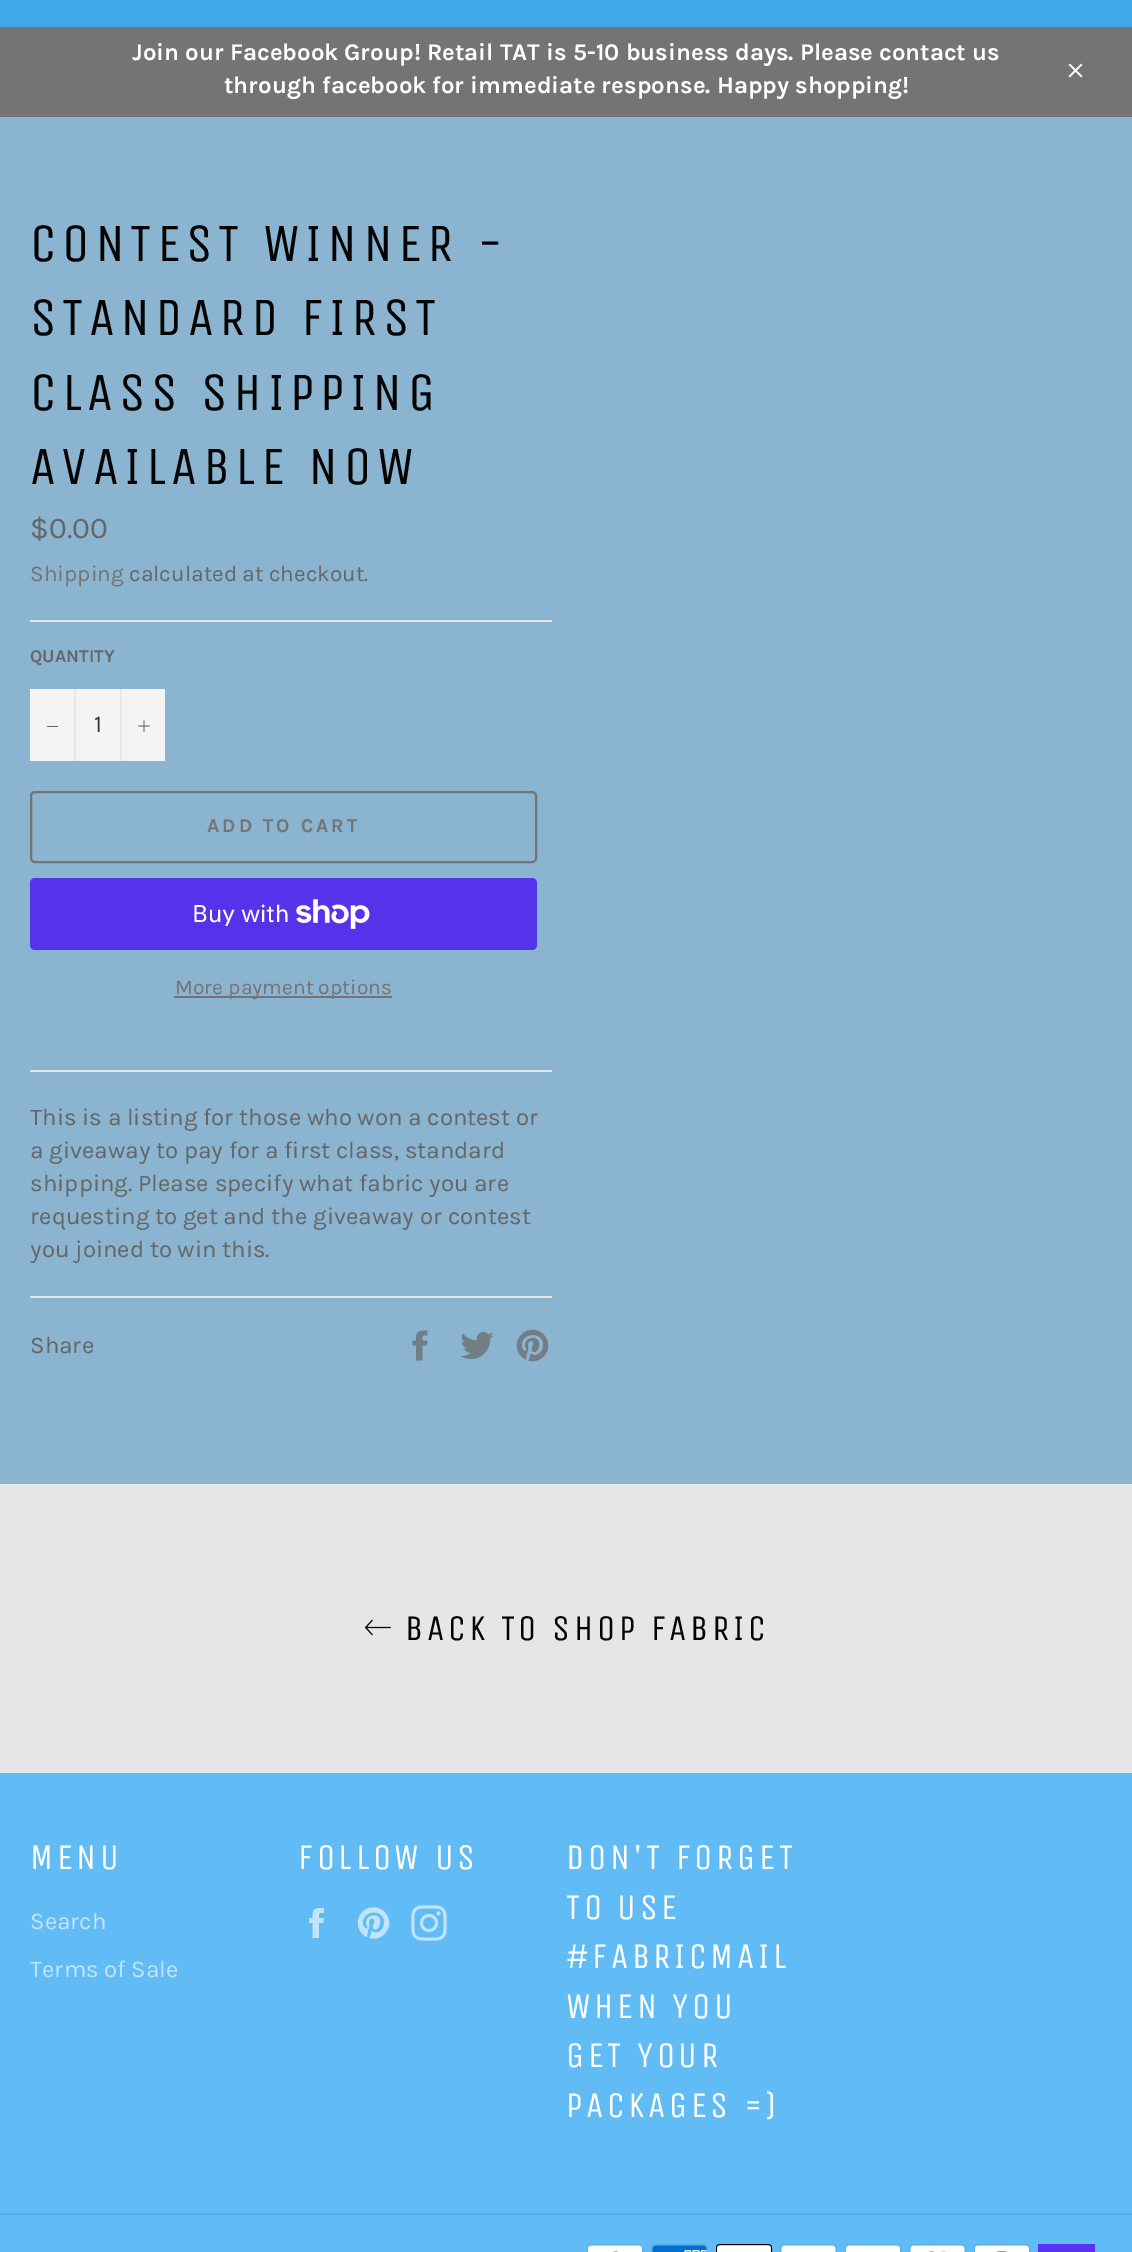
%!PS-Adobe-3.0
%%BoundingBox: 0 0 1132 2252
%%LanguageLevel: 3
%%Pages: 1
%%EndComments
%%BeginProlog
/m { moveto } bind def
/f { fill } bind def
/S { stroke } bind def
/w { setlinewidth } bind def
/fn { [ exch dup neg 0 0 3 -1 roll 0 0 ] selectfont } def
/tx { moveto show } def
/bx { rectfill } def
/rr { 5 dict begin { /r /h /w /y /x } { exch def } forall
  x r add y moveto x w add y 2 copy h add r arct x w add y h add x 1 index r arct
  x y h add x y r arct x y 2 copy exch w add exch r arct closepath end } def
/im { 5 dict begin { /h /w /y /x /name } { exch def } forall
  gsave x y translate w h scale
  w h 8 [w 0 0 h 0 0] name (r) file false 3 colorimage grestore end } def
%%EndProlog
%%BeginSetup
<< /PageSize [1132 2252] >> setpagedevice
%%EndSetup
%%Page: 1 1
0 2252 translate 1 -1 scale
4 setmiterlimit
0.463 0.455 0.451 setrgbcolor
0 0 1132 2252 bx
0.251 0.655 0.91 setrgbcolor
0 0 1132 27 bx
/Karla-Bold 24 fn
1 setgray
(Join our Facebook Group! Retail TAT is 5-10 business days. Please contact us) 132 60 tx
(through facebook for immediate response. Happy shopping!) 224 93 tx
(image0.raw) 1068 63 15 15 im
0.541 0.706 0.812 setrgbcolor
0 117 1132 1367 bx
/UnicaOne-Regular 54 fn
0.012 setgray
30 261 m 5.4 0 (CONTEST WINNER -) ashow
30 335 m 5.4 0 (STANDARD FIRST) ashow
30 410 m 5.4 0 (CLASS SHIPPING) ashow
30 484 m 5.4 0 (AVAILABLE NOW) ashow
/Karla-Regular 30 fn
0.4 setgray
($0.00) 30 538 tx
/Karla-Regular 22.5 fn
0.463 0.455 0.451 setrgbcolor
(Shipping) 30 581 tx
0.4 setgray
(calculated at checkout.) 129 581 tx
0.902 setgray
30 620 522 2 bx
/Karla-Bold 18 fn
0.4 setgray
(QUANTITY) 30 662 tx
0.957 setgray
30 689 135 72 bx
0.906 setgray
74 689 2 72 bx
0.4 setgray
47 726 11 1 bx
/Karla-Regular 24 fn
0.2 setgray
(1) 94 732 tx
0.906 setgray
120 689 2 72 bx
(image1.raw) 138 720 12 12 im
0.463 0.455 0.451 setrgbcolor
2 w
31 792 505 70 4 rr S
/Karla-Bold 19.5 fn
207 832 m 3 0 (ADD TO CART) ashow
0.329 0.2 0.922 setrgbcolor
30 878 507 72 5 rr f
/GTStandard-Regular 24 fn
1 setgray
(Buy with) 192 922 tx
(image2.raw) 296 899 74 30 im
0.463 0.455 0.451 setrgbcolor
174 996 218 2 bx
/Karla-Regular 21 fn
(More payment options) 175 994 tx
0.902 setgray
30 1070 522 2 bx
/Karla-Regular 24 fn
0.4 setgray
(This is a listing for those who won a contest or) 30 1125 tx
(a giveaway to pay for a first class, standard) 30 1158 tx
(shipping. Please specify what fabric you are) 30 1191 tx
(requesting to get and the giveaway or contest) 30 1224 tx
(you joined to win this.) 30 1257 tx
0.902 setgray
30 1296 522 2 bx
0.4 setgray
(Share) 30 1353 tx
(image3.raw) 412 1330 16 31 im
(image4.raw) 460 1332 34 27 im
(image5.raw) 516 1329 33 33 im
0.902 setgray
0 1484 1132 289 bx
(image6.raw) 365 1619 26 17 im
/UnicaOne-Regular 36 fn
0.012 setgray
405 1640 m 3.6 0 (BACK TO SHOP FABRIC) ashow
0.38 0.737 0.961 setrgbcolor
0 1773 1132 479 bx
1 setgray
30 1869 m 3.6 0 (MENU) ashow
/Karla-Regular 24 fn
0.753 0.894 0.984 setrgbcolor
(Search) 30 1929 tx
(Terms of Sale) 30 1977 tx
/UnicaOne-Regular 36 fn
1 setgray
298 1869 m 3.6 0 (FOLLOW US) ashow
(image7.raw) 309 1908 15 30 im
(image8.raw) 357 1907 33 32 im
(image9.raw) 411 1905 36 36 im
566 1869 m 3.6 0 (DON'T FORGET) ashow
566 1919 m 3.6 0 (TO USE) ashow
566 1968 m 3.6 0 (#FABRICMAIL) ashow
566 2018 m 3.6 0 (WHEN YOU) ashow
566 2067 m 3.6 0 (GET YOUR) ashow
566 2117 m 3.6 0 (PACKAGES =\)) ashow
0.286 0.698 0.953 setrgbcolor
0 2213 1132 2 bx
(image10.raw) 587 2244 57 8 im
(image11.raw) 651 2244 57 8 im
(image12.raw) 716 2244 57 8 im
(image13.raw) 780 2244 57 8 im
(image14.raw) 845 2244 57 8 im
(image15.raw) 909 2244 57 8 im
(image16.raw) 974 2244 57 8 im
0.353 0.192 0.957 setrgbcolor
1038 2244 57 8 bx
showpage
%%EOF
